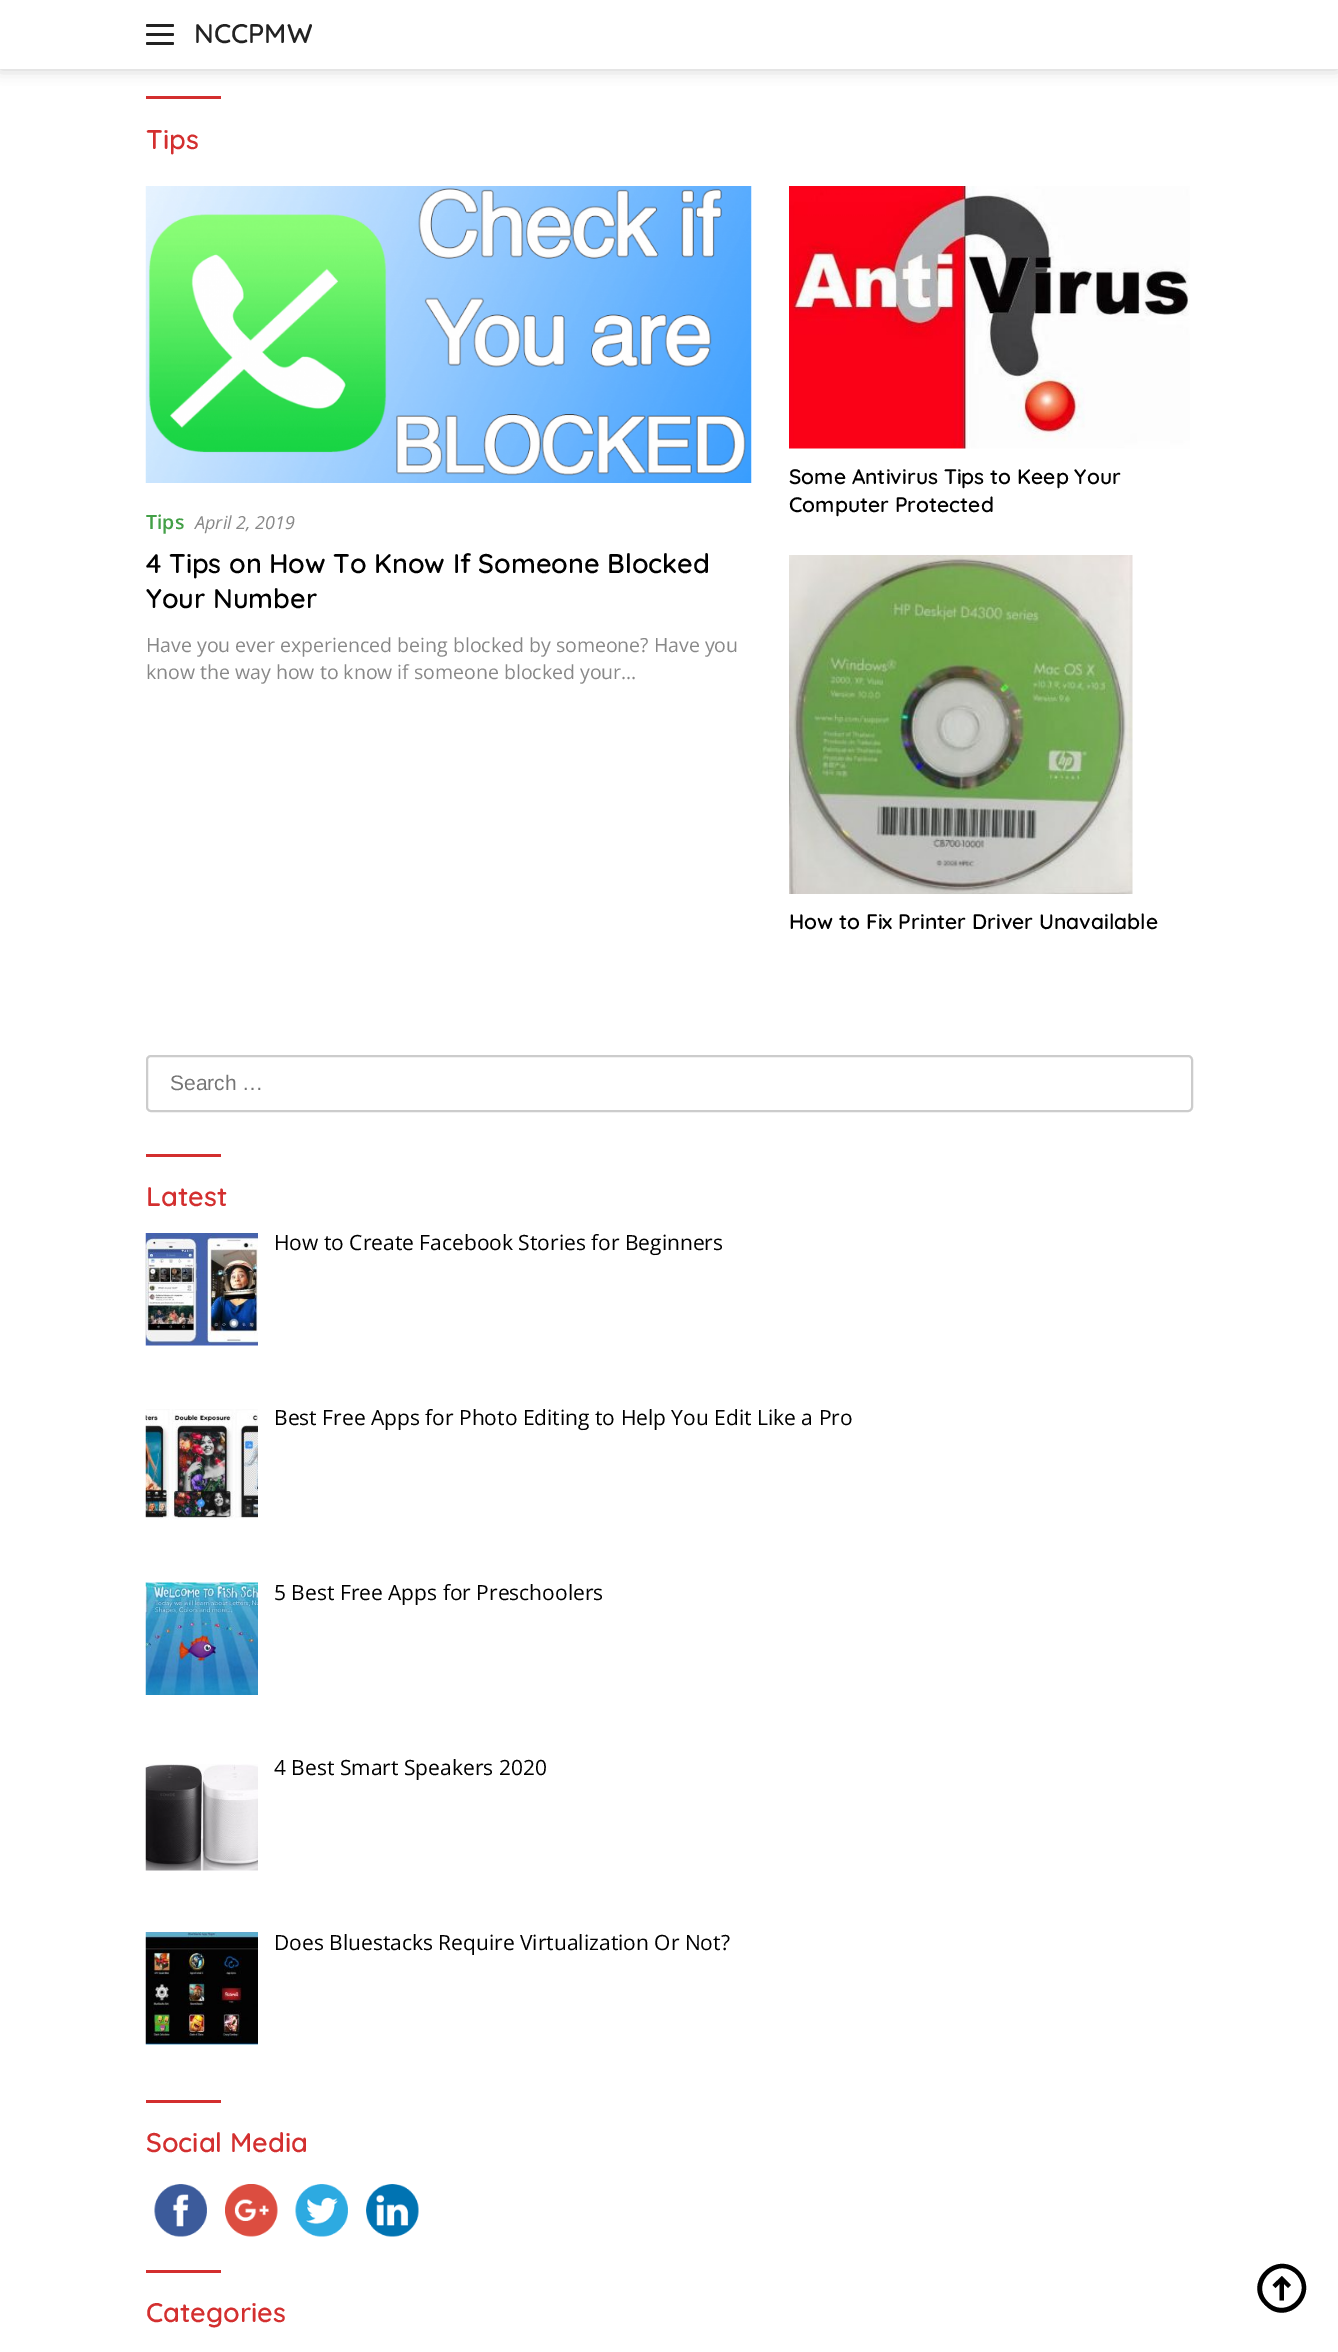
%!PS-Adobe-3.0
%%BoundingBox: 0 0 1338 2352
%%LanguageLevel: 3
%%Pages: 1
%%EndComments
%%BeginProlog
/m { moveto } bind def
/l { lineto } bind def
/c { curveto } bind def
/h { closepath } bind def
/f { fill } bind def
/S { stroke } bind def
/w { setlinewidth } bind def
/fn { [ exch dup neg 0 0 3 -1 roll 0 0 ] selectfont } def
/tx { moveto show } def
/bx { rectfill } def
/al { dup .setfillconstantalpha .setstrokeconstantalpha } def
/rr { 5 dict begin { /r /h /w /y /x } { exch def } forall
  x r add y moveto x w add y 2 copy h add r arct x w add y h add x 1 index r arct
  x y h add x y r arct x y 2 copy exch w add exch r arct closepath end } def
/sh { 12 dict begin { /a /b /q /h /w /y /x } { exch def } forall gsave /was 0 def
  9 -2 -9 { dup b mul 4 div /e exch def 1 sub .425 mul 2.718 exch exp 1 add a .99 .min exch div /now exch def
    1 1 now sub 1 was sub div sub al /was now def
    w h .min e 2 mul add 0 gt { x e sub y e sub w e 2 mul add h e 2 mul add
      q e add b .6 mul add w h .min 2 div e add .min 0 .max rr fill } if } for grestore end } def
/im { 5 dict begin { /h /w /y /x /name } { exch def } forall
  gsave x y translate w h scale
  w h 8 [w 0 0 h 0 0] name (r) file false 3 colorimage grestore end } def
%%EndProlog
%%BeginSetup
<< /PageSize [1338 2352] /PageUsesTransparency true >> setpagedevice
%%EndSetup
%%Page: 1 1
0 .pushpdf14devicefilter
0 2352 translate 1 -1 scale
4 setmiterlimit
1 setgray
0 0 1338 2352 bx
0 setgray
0 0 1338 69 0 7.5 0.2 sh
1 setgray
0 0 1338 69 bx
0.133 setgray
146 24 28 3 1.5 rr f
146 33 28 3 1.5 rr f
146 42 28 3 1.5 rr f
/Quicksand-SemiBold 27 fn
(NCCPMW) 194 43 tx
0.827 0.184 0.184 setrgbcolor
146 96 75 3 bx
(Tips) 146 149 tx
(image0.raw) 145 186 607 297 im
/OpenSans-SemiBold 19.5 fn
0.263 0.627 0.278 setrgbcolor
(Tips) 146 529 tx
/OpenSans-Italic 18 fn
0.533 setgray
(April 2, 2019) 195 529 tx
/Quicksand-SemiBold 27 fn
0 setgray
(4 Tips on How To Know If Someone Blocked) 146 573 tx
(Your Number) 146 608 tx
/OpenSans-Regular 19.5 fn
0.533 setgray
(Have you ever experienced being blocked by someone? Have you) 146 652 tx
(know the way how to know if someone blocked your…) 146 679 tx
(image1.raw) 789 186 401 263 im
/Quicksand-SemiBold 21 fn
0 setgray
(Some Antivirus Tips to Keep Your) 789 484 tx
(Computer Protected) 789 512 tx
(image2.raw) 789 555 344 339 im
(How to Fix Printer Driver Unavailable) 789 929 tx
0.8 setgray
2 w
147 1056 1045 55 4 rr S
/LiberationSans-Regular 21 fn
0.459 setgray
(Search …) 170 1090 tx
0.827 0.184 0.184 setrgbcolor
146 1154 75 3 bx
/Quicksand-SemiBold 27 fn
(Latest) 146 1206 tx
(image3.raw) 145 1233 113 113 im
/OpenSans-Regular 21 fn
0 setgray
(How to Create Facebook Stories for Beginners) 274 1250 tx
(image4.raw) 145 1409 113 111 im
(Best Free Apps for Photo Editing to Help You Edit Like a Pro) 274 1425 tx
(image5.raw) 145 1582 113 113 im
(5 Best Free Apps for Preschoolers) 274 1600 tx
(image6.raw) 145 1764 113 107 im
(4 Best Smart Speakers 2020) 274 1775 tx
(image7.raw) 145 1932 113 113 im
(Does Bluestacks Require Virtualization Or Not?) 274 1950 tx
0.827 0.184 0.184 setrgbcolor
146 2100 75 3 bx
/Quicksand-SemiBold 27 fn
(Social Media) 146 2152 tx
(image8.raw) 154 2184 53 53 im
(image9.raw) 225 2184 53 53 im
(image10.raw) 295 2184 53 53 im
(image11.raw) 366 2184 53 53 im
146 2270 75 3 bx
(Categories) 146 2322 tx
0 setgray
1288 2288 m 1291 2285 l 1282 2276 l 1272.5 2285 l 1275.5 2288 l 1279.5 2284 l 1279.5 2300.5 l 1284 2300.5 l 1284 2284 l h f
1299 2271 m 1276 2249 1242 2283 1265 2305 c 1287 2328 1321 2294 1299 2271 c h 1296 2274 m 1277 2256 1250 2284 1268 2302 c 1286 2320 1314 2293 1296 2274 c h eofill
.poppdf14devicefilter showpage
%%EOF
